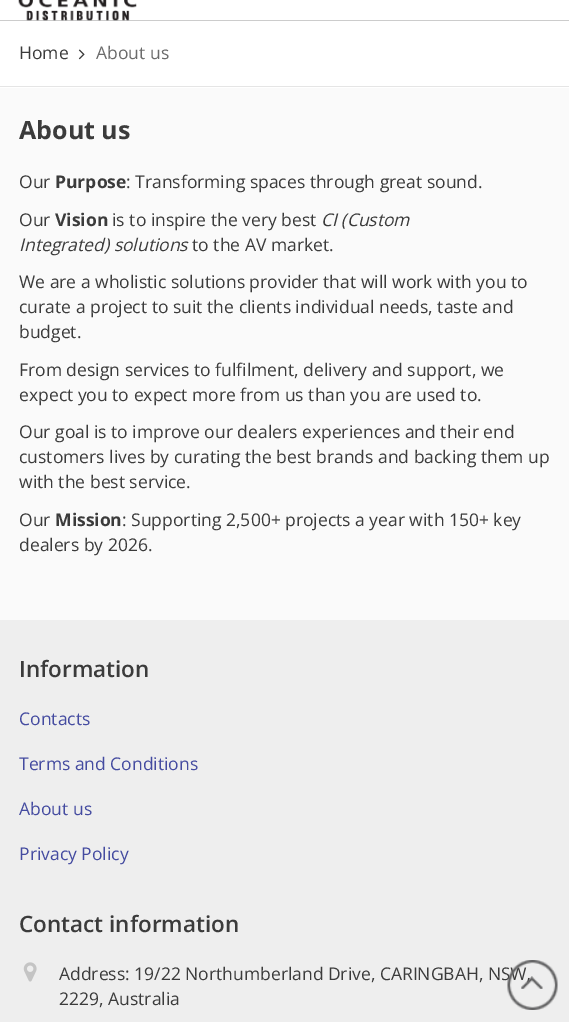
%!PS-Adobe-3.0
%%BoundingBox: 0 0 569 1022
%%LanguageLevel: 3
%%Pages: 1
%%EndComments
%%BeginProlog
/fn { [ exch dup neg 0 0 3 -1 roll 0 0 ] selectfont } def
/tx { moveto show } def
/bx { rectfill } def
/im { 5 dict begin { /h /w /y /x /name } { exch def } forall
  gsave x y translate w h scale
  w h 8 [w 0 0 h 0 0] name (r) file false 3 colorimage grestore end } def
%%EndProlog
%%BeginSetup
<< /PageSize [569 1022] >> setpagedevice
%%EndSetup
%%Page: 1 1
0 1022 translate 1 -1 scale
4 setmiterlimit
0.98 setgray
0 0 569 1022 bx
1 setgray
0 0 569 20 bx
0.8 setgray
0 20 569 1 bx
(image0.raw) 18 0 119 21 im
1 setgray
0 21 569 67 bx
0.898 setgray
0 86 569 1 bx
/OpenSans-Regular 17.5 fn
0.231 setgray
(Home) 19 59 tx
(image1.raw) 78 49 7 11 im
0.42 setgray
(About us) 96 59 tx
/OpenSans-Bold 25 fn
0.231 setgray
(About us) 19 139 tx
/OpenSans-Regular 17.5 fn
(Our) 19 188 tx
/OpenSans-Bold 17.5 fn
(Purpose) 55 188 tx
/OpenSans-Regular 17.5 fn
(: Transforming spaces through great sound.) 126 188 tx
(Our) 19 226 tx
/OpenSans-Bold 17.5 fn
(Vision) 55 226 tx
/OpenSans-Regular 17.5 fn
(is to inspire the very best) 112 226 tx
/OpenSans-Italic 17.5 fn
(CI \(Custom) 321 226 tx
(Integrated\) solutions) 19 251 tx
/OpenSans-Regular 17.5 fn
(to the AV market.) 192 251 tx
(We are a wholistic solutions provider that will work with you to) 19 288 tx
(curate a project to suit the clients individual needs, taste and) 19 313 tx
(budget.) 19 338 tx
(From design services to fulfilment, delivery and support, we) 19 376 tx
(expect you to expect more from us than you are used to.) 19 401 tx
(Our goal is to improve our dealers experiences and their end) 19 438 tx
(customers lives by curating the best brands and backing them up) 19 463 tx
(with the best service.) 19 488 tx
(Our) 19 526 tx
/OpenSans-Bold 17.5 fn
(Mission) 55 526 tx
/OpenSans-Regular 17.5 fn
(: Supporting 2,500+ projects a year with 150+ key) 122 526 tx
(dealers by 2026.) 19 551 tx
0.933 setgray
0 620 569 402 bx
/OpenSans-SemiBold 22.5 fn
0.231 setgray
(Information) 19 677 tx
/OpenSans-Regular 17.5 fn
0.267 0.294 0.627 setrgbcolor
(Contacts) 19 725 tx
(Terms and Conditions) 19 770 tx
(About us) 19 815 tx
(Privacy Policy) 19 860 tx
/OpenSans-SemiBold 22.5 fn
0.231 setgray
(Contact information) 19 932 tx
(image2.raw) 23 962 14 20 im
/OpenSans-Regular 17.5 fn
(Address: 19/22 Northumberland Drive, CARINGBAH, NSW,) 59 980 tx
(2229, Australia) 59 1005 tx
(image3.raw) 507 960 51 50 im
showpage
%%EOF
